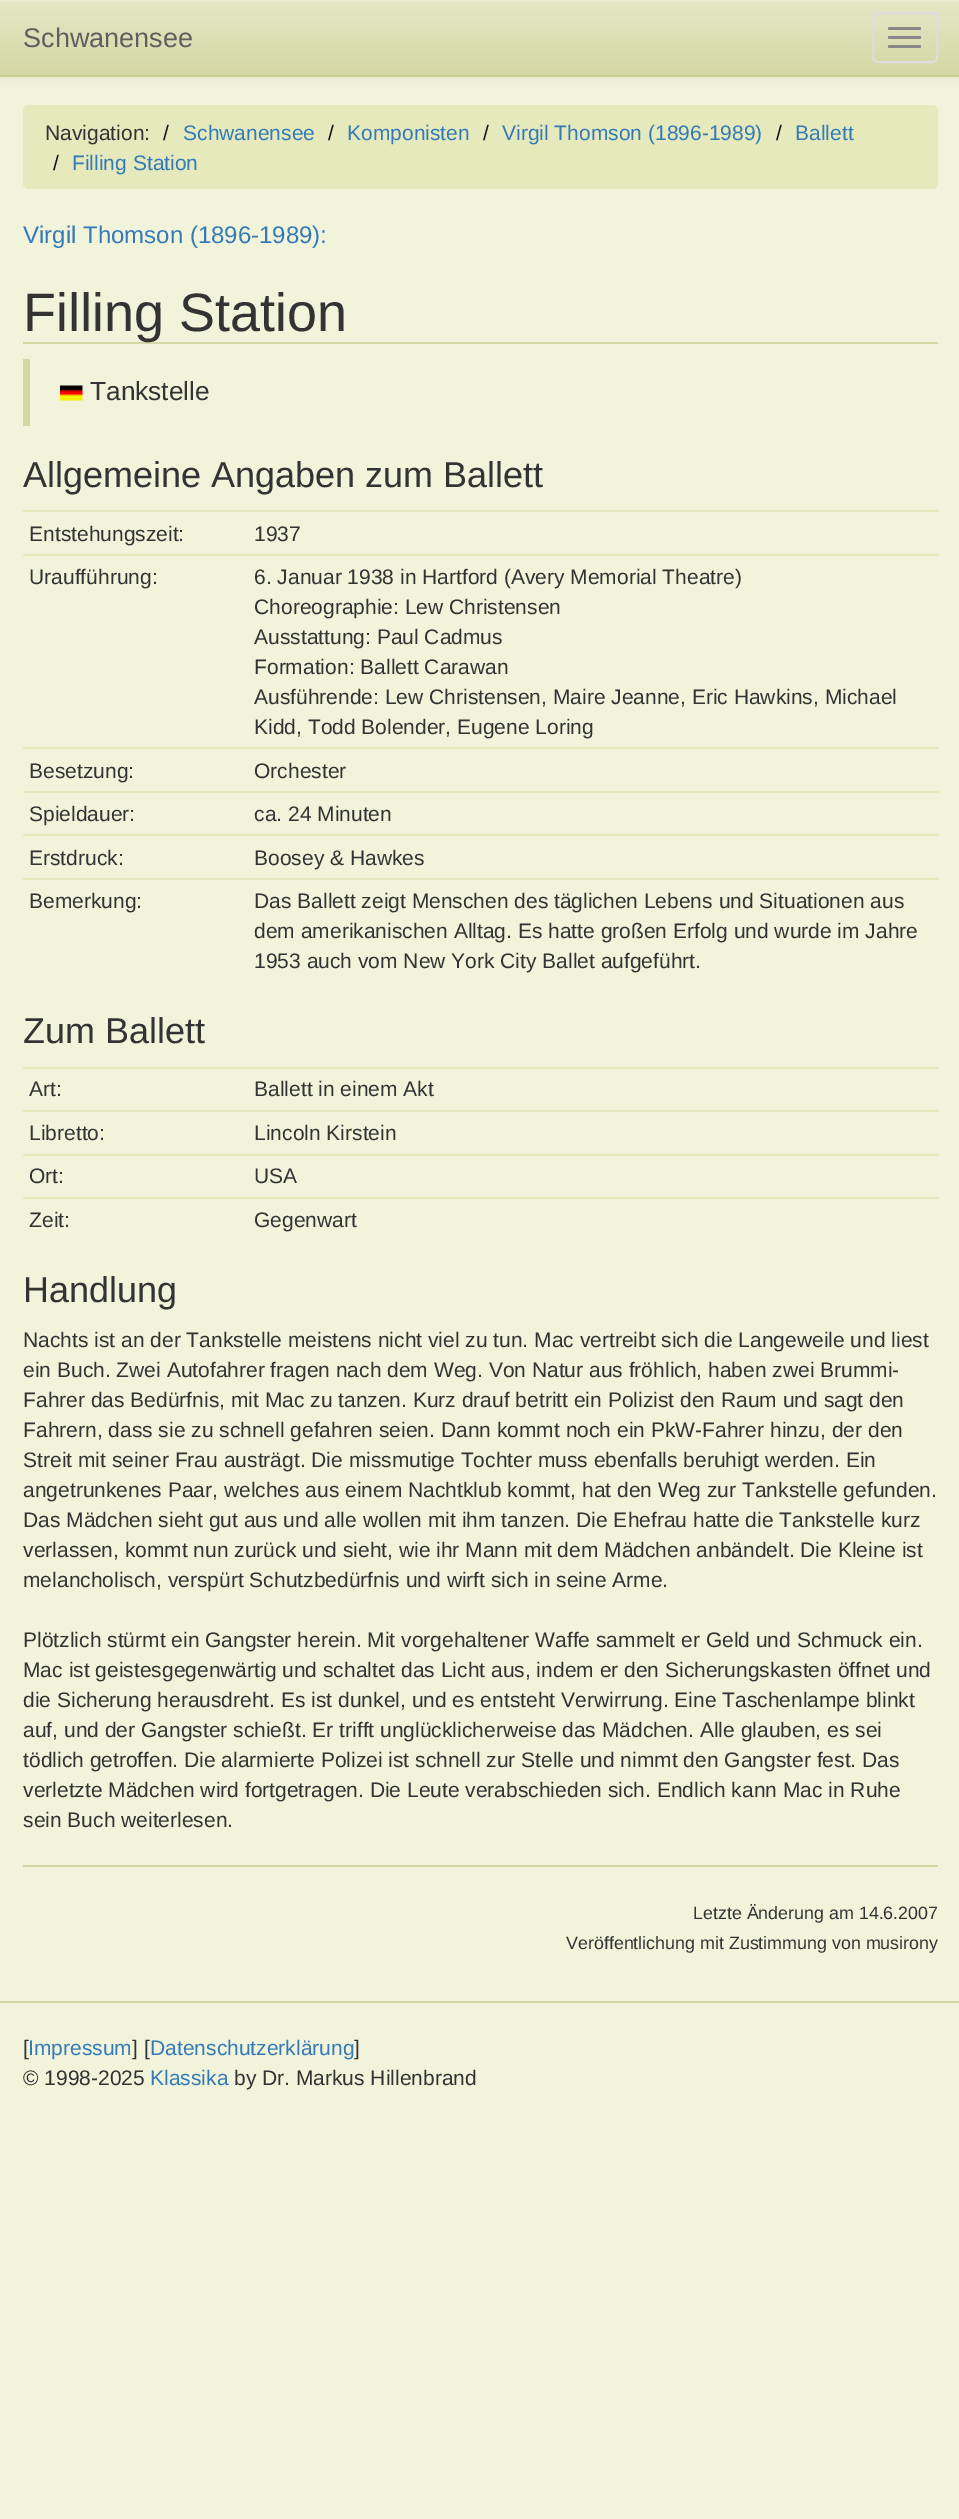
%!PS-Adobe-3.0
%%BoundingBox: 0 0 959 2519
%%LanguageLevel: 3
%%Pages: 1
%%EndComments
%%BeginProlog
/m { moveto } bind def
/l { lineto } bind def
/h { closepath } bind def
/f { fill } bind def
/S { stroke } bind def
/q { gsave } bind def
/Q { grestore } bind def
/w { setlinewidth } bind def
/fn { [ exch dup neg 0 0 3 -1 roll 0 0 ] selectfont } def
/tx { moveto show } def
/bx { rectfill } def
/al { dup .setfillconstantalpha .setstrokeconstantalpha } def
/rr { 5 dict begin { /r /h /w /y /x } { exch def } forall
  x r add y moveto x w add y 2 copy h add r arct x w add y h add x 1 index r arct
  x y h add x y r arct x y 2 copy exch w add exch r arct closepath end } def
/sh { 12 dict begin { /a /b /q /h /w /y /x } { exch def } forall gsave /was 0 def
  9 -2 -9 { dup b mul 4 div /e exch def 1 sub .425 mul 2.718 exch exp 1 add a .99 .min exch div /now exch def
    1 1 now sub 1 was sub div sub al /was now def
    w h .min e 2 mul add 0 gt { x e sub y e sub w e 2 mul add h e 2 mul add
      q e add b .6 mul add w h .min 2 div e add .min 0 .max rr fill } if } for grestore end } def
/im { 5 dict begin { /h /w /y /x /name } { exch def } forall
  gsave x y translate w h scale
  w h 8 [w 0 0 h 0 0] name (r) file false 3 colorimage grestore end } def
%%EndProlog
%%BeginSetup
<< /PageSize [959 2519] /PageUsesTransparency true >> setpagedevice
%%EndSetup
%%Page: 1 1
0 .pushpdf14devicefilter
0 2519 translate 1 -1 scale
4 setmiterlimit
0.945 0.953 0.855 setrgbcolor
0 0 959 2519 bx
0 setgray
0 2 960 76 0 4 0.07 sh
q 0 2 m 959 2 l 959 75 l 0 75 l h clip newpath
<< /ShadingType 2 /ColorSpace /DeviceRGB /Coords [480 0 480 75] /Extend [true true] /Function << /FunctionType 2 /Domain [0 1] /C0 [0.898 0.906 0.78] /C1 [0.831 0.847 0.639] /N 1 >> >> shfill Q
0.914 0.922 0.812 setrgbcolor
0 0 959 2 bx
0.788 0.808 0.549 setrgbcolor
0 75 959 2 bx
/LiberationSans-Regular 27 fn
0.369 setgray
(Schwanensee) 23 47 tx
0.867 setgray
2 w
873 13 64 49 5 rr S
0.533 setgray
888 27 33 3 1.5 rr f
888 36 33 3 1.5 rr f
888 45 33 3 1.5 rr f
0.898 0.914 0.733 setrgbcolor
23 105 915 84 6 rr f
/LiberationSans-Regular 21 fn
0.2 setgray
(Navigation:) 45 140 tx
0.067 setgray
(/) 163 140 tx
0.2 0.478 0.718 setrgbcolor
(Schwanensee) 183 140 tx
0.067 setgray
(/) 328 140 tx
0.2 0.478 0.718 setrgbcolor
(Komponisten) 347 140 tx
0.067 setgray
(/) 483 140 tx
0.2 0.478 0.718 setrgbcolor
(Virgil Thomson \(1896-1989\)) 502 140 tx
0.067 setgray
(/) 776 140 tx
0.2 0.478 0.718 setrgbcolor
(Ballett) 795 140 tx
0.067 setgray
(/) 53 170 tx
0.2 0.478 0.718 setrgbcolor
(Filling Station) 72 170 tx
/LiberationSans-Regular 24 fn
(Virgil Thomson \(1896-1989\):) 23 243 tx
0.831 0.847 0.639 setrgbcolor
23 342 915 2 bx
/LiberationSans-Regular 54 fn
0.2 setgray
(Filling Station) 23 331 tx
0.831 0.847 0.639 setrgbcolor
23 359 7 67 bx
(image0.raw) 60 385 23 16 im
/LiberationSans-Regular 26.25 fn
0.2 setgray
(Tankstelle) 90 400 tx
/LiberationSans-Regular 36 fn
(Allgemeine Angaben zum Ballett) 23 487 tx
/LiberationSans-Regular 21 fn
(Entstehungszeit:) 29 541 tx
0.898 0.914 0.733 setrgbcolor
23 510 916 2 bx
0.2 setgray
(1937) 254 541 tx
(Uraufführung:) 29 584 tx
0.898 0.914 0.733 setrgbcolor
23 554 916 2 bx
0.2 setgray
(6. Januar 1938 in Hartford \(Avery Memorial Theatre\)) 254 584 tx
(Choreographie: Lew Christensen) 254 614 tx
(Ausstattung: Paul Cadmus) 254 644 tx
(Formation: Ballett Carawan) 254 674 tx
(Ausführende: Lew Christensen, Maire Jeanne, Eric Hawkins, Michael) 254 704 tx
(Kidd, Todd Bolender, Eugene Loring) 254 734 tx
(Besetzung:) 29 778 tx
0.898 0.914 0.733 setrgbcolor
23 747 916 2 bx
0.2 setgray
(Orchester) 254 778 tx
(Spieldauer:) 29 821 tx
0.898 0.914 0.733 setrgbcolor
23 791 916 2 bx
0.2 setgray
(ca. 24 Minuten) 254 821 tx
(Erstdruck:) 29 865 tx
0.898 0.914 0.733 setrgbcolor
23 834 916 2 bx
0.2 setgray
(Boosey & Hawkes) 254 865 tx
(Bemerkung:) 29 908 tx
0.898 0.914 0.733 setrgbcolor
23 878 916 2 bx
0.2 setgray
(Das Ballett zeigt Menschen des täglichen Lebens und Situationen aus) 254 908 tx
(dem amerikanischen Alltag. Es hatte großen Erfolg und wurde im Jahre) 254 938 tx
(1953 auch vom New York City Ballet aufgeführt.) 254 968 tx
/LiberationSans-Regular 36 fn
(Zum Ballett) 23 1043 tx
/LiberationSans-Regular 21 fn
(Art:) 29 1096 tx
0.898 0.914 0.733 setrgbcolor
23 1067 916 2 bx
0.2 setgray
(Ballett in einem Akt) 254 1096 tx
(Libretto:) 29 1140 tx
0.898 0.914 0.733 setrgbcolor
23 1110 916 2 bx
0.2 setgray
(Lincoln Kirstein) 254 1140 tx
(Ort:) 29 1183 tx
0.898 0.914 0.733 setrgbcolor
23 1154 916 2 bx
0.2 setgray
(USA) 254 1183 tx
(Zeit:) 29 1227 tx
0.898 0.914 0.733 setrgbcolor
23 1197 916 2 bx
0.2 setgray
(Gegenwart) 254 1227 tx
/LiberationSans-Regular 36 fn
(Handlung) 23 1302 tx
/LiberationSans-Regular 21 fn
(Nachts ist an der Tankstelle meistens nicht viel zu tun. Mac vertreibt sich die Langeweile und liest) 23 1347 tx
(ein Buch. Zwei Autofahrer fragen nach dem Weg. Von Natur aus fröhlich, haben zwei Brummi-) 23 1377 tx
(Fahrer das Bedürfnis, mit Mac zu tanzen. Kurz drauf betritt ein Polizist den Raum und sagt den) 23 1407 tx
(Fahrern, dass sie zu schnell gefahren seien. Dann kommt noch ein PkW-Fahrer hinzu, der den) 23 1437 tx
(Streit mit seiner Frau austrägt. Die missmutige Tochter muss ebenfalls beruhigt werden. Ein) 23 1467 tx
(angetrunkenes Paar, welches aus einem Nachtklub kommt, hat den Weg zur Tankstelle gefunden.) 23 1497 tx
(Das Mädchen sieht gut aus und alle wollen mit ihm tanzen. Die Ehefrau hatte die Tankstelle kurz) 23 1527 tx
(verlassen, kommt nun zurück und sieht, wie ihr Mann mit dem Mädchen anbändelt. Die Kleine ist) 23 1557 tx
(melancholisch, verspürt Schutzbedürfnis und wirft sich in seine Arme.) 23 1587 tx
(Plötzlich stürmt ein Gangster herein. Mit vorgehaltener Waffe sammelt er Geld und Schmuck ein.) 23 1647 tx
(Mac ist geistesgegenwärtig und schaltet das Licht aus, indem er den Sicherungskasten öffnet und) 23 1677 tx
(die Sicherung herausdreht. Es ist dunkel, und es entsteht Verwirrung. Eine Taschenlampe blinkt) 23 1707 tx
(auf, und der Gangster schießt. Er trifft unglücklicherweise das Mädchen. Alle glauben, es sei) 23 1737 tx
(tödlich getroffen. Die alarmierte Polizei ist schnell zur Stelle und nimmt den Gangster fest. Das) 23 1767 tx
(verletzte Mädchen wird fortgetragen. Die Leute verabschieden sich. Endlich kann Mac in Ruhe) 23 1797 tx
(sein Buch weiterlesen.) 23 1827 tx
0.831 0.847 0.639 setrgbcolor
23 1865 915 2 bx
/LiberationSans-Regular 17.85 fn
0.2 setgray
(Letzte Änderung am 14.6.2007) 693 1919 tx
(Veröffentlichung mit Zustimmung von musirony) 566 1949 tx
0.831 0.847 0.639 setrgbcolor
0 2001 959 2 bx
/LiberationSans-Regular 21 fn
0.2 setgray
([) 23 2055 tx
0.2 0.478 0.718 setrgbcolor
(Impressum) 28 2055 tx
0.2 setgray
(] [) 132 2055 tx
0.2 0.478 0.718 setrgbcolor
(Datenschutzerklärung) 150 2055 tx
0.2 setgray
(]) 354 2055 tx
(© 1998-2025) 23 2085 tx
0.2 0.478 0.718 setrgbcolor
(Klassika) 150 2085 tx
0.2 setgray
(by Dr. Markus Hillenbrand) 234 2085 tx
.poppdf14devicefilter showpage
%%EOF
